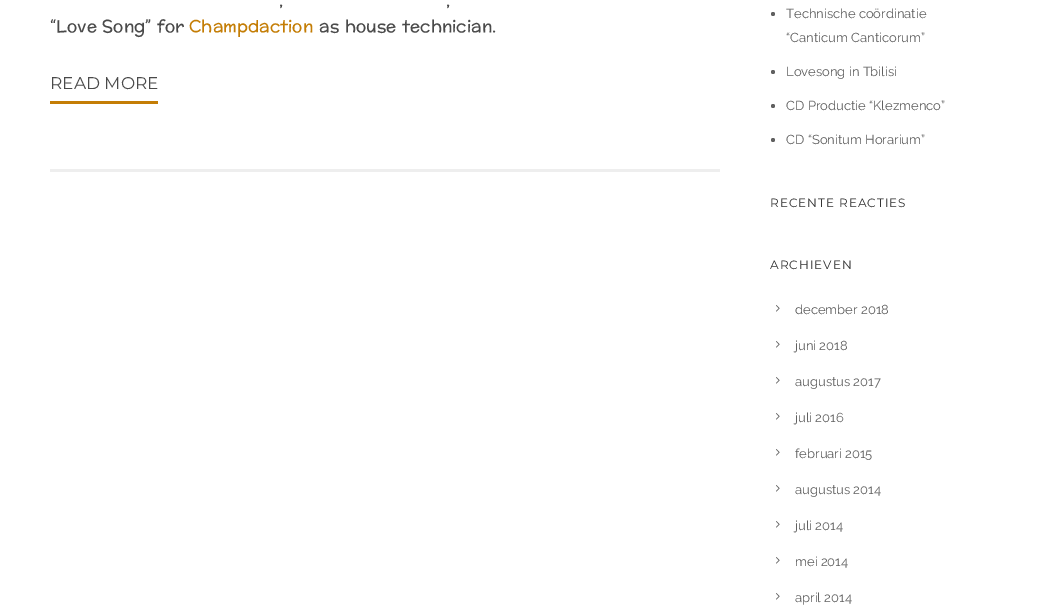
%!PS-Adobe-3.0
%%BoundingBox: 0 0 1039 605
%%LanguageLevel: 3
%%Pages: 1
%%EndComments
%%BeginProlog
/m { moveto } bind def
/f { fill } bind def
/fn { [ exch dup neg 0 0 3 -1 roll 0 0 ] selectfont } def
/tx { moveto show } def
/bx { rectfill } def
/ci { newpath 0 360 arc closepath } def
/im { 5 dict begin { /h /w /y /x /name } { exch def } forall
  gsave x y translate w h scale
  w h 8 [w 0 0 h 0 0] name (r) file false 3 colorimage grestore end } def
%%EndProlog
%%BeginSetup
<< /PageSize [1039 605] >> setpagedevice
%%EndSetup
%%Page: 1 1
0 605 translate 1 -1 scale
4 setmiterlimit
1 setgray
0 0 1039 605 bx
/Preahvihear-Regular 17 fn
0.29 setgray
(,) 279 6 tx
(,) 446 6 tx
/Roboto-Regular 17 fn
(“) 50 32 tx
/Preahvihear-Regular 17 fn
(Love Song) 56 32 tx
/Roboto-Regular 17 fn
(”) 145 32 tx
/Preahvihear-Regular 17 fn
(for) 157 32 tx
0.769 0.49 0.02 setrgbcolor
(Champdaction) 189 32 tx
0.29 setgray
(as house technician.) 319 32 tx
0.769 0.49 0.02 setrgbcolor
50 101 108 3 bx
/Montserrat-Regular 17 fn
0.29 setgray
(READ MORE) 50 89 tx
0.933 setgray
50 169 670 3 bx
0.376 setgray
773 14 2 ci f
/Raleway-Regular 13 fn
(Technische coördinatie) 786 18 tx
(“Canticum Canticorum”) 786 42 tx
773 72 2 ci f
(Lovesong in Tbilisi) 786 76 tx
773 106 2 ci f
(CD Productie “Klezmenco”) 786 110 tx
773 140 2 ci f
(CD “Sonitum Horarium”) 786 144 tx
/Montserrat-Regular 12 fn
0.2 setgray
770 207 m 1 0 (RECENTE REACTIES) ashow
770 269 m 1 0 (ARCHIEVEN) ashow
(image0.raw) 776 305 4 7 im
/Raleway-Regular 13 fn
0.376 setgray
(december 2018) 795 314 tx
(image0.raw) 776 341 4 7 im
(juni 2018) 795 350 tx
(image0.raw) 776 377 4 7 im
(augustus 2017) 795 386 tx
(image0.raw) 776 413 4 7 im
(juli 2016) 795 422 tx
(image0.raw) 776 449 4 7 im
(februari 2015) 795 458 tx
(image0.raw) 776 485 4 7 im
(augustus 2014) 795 494 tx
(image0.raw) 776 521 4 7 im
(juli 2014) 795 530 tx
(image0.raw) 776 557 4 7 im
(mei 2014) 795 566 tx
(image0.raw) 776 593 4 7 im
(april 2014) 795 602 tx
showpage
%%EOF
